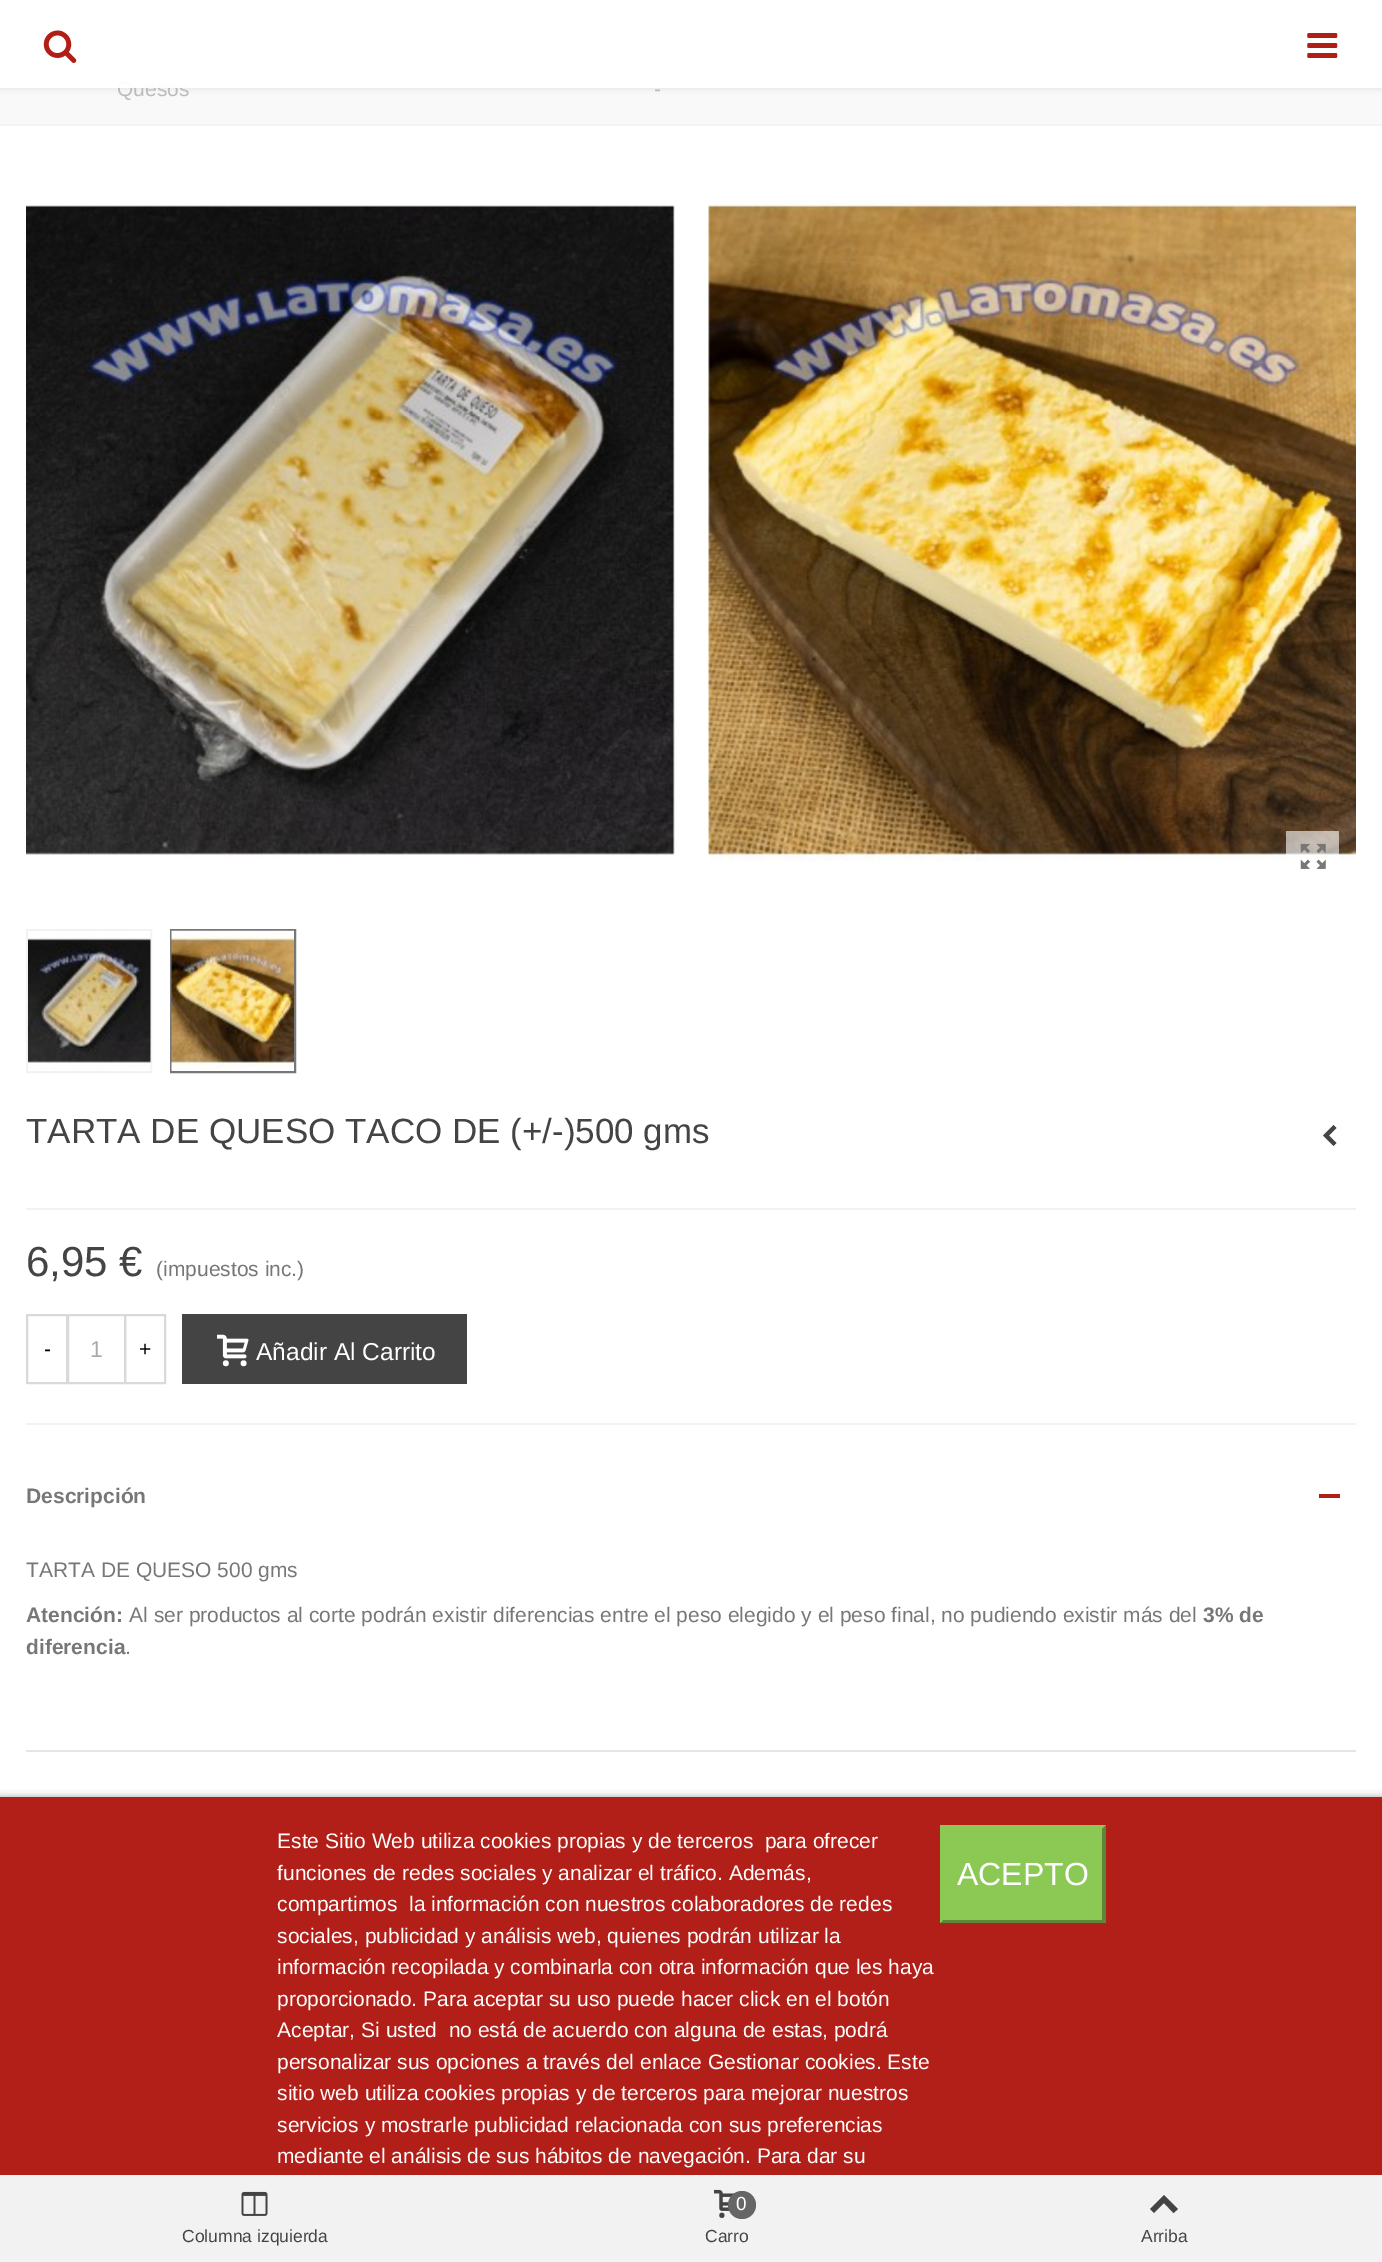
%!PS-Adobe-3.0
%%BoundingBox: 0 0 1382 2262
%%LanguageLevel: 3
%%Pages: 1
%%EndComments
%%BeginProlog
/m { moveto } bind def
/l { lineto } bind def
/h { closepath } bind def
/f { fill } bind def
/q { gsave } bind def
/Q { grestore } bind def
/w { setlinewidth } bind def
/fn { [ exch dup neg 0 0 3 -1 roll 0 0 ] selectfont } def
/tx { moveto show } def
/bx { rectfill } def
/al { dup .setfillconstantalpha .setstrokeconstantalpha } def
/ci { newpath 0 360 arc closepath } def
/rr { 5 dict begin { /r /h /w /y /x } { exch def } forall
  x r add y moveto x w add y 2 copy h add r arct x w add y h add x 1 index r arct
  x y h add x y r arct x y 2 copy exch w add exch r arct closepath end } def
/sh { 12 dict begin { /a /b /q /h /w /y /x } { exch def } forall gsave /was 0 def
  9 -2 -9 { dup b mul 4 div /e exch def 1 sub .425 mul 2.718 exch exp 1 add a .99 .min exch div /now exch def
    1 1 now sub 1 was sub div sub al /was now def
    w h .min e 2 mul add 0 gt { x e sub y e sub w e 2 mul add h e 2 mul add
      q e add b .6 mul add w h .min 2 div e add .min 0 .max rr fill } if } for grestore end } def
/im { 5 dict begin { /h /w /y /x /name } { exch def } forall
  gsave x y translate w h scale
  w h 8 [w 0 0 h 0 0] name (r) file false 3 colorimage grestore end } def
%%EndProlog
%%BeginSetup
<< /PageSize [1382 2262] /PageUsesTransparency true >> setpagedevice
%%EndSetup
%%Page: 1 1
0 .pushpdf14devicefilter
0 2262 translate 1 -1 scale
4 setmiterlimit
1 setgray
0 0 1382 2262 bx
0.976 setgray
0 55 1382 69 bx
0.953 setgray
0 53 1382 2 bx
q
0 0 m 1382 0 l 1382 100 l 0 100 l h 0 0 m 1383 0 l 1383 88 l 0 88 l h eoclip newpath
0 setgray
0 0 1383 88 0 3.5 0.1 sh
Q
/LiberationSans-Regular 21 fn
0.733 setgray
(Quesos) 117 96 tx
0.95 al
1 setgray
0 53 1382 35 bx
1 al
(image0.raw) 43 30 34 33 im
(image1.raw) 1307 33 31 25 im
0.953 setgray
0 124 1382 2 bx
0.733 setgray
(-) 654 96 tx
(image2.raw) 26 205 649 652 im
(image3.raw) 708 203 648 658 im
0.6 al
1 setgray
1286 831 53 30 bx
1 al
(image4.raw) 1300 843 26 26 im
0.949 setgray
2 w
27 930 124 142 rectstroke
(image5.raw) 28 931 123 140 im
0.467 setgray
171 930 124 142 rectstroke
(image6.raw) 171 930 123 141 im
/LiberationSans-Regular 35 fn
0.267 setgray
(TARTA DE QUESO TACO DE \(+/-\)500 gms) 26 1143 tx
1323 1135.5 m 1333.5 1125 l 1336.5 1128 l 1329 1135.5 l 1336.5 1143 l 1333.5 1146 l h f
0.949 setgray
26 1208 1330 2 bx
/LiberationSans-Regular 42 fn
0.267 setgray
(6,95 €) 26 1276 tx
/LiberationSans-Regular 21 fn
0.467 setgray
(\(impuestos inc.\)) 156 1276 tx
0.851 setgray
27 1315 40 68 rectstroke
0 setgray
(-) 44 1356 tx
0.851 setgray
68 1315 57 68 rectstroke
/LiberationSans-Regular 23 fn
0.675 0.667 0.651 setrgbcolor
(1) 90 1357 tx
0.851 setgray
125 1315 40 68 rectstroke
/LiberationSans-Regular 21 fn
0 setgray
(+) 139 1356 tx
0.267 setgray
182 1314 285 70 bx
(image7.raw) 217 1334 32 33 im
/LiberationSans-Regular 24.5 fn
1 setgray
(Añadir Al Carrito) 256 1360 tx
0.949 setgray
26 1423 1330 2 bx
0.898 setgray
26 1750 1330 2 bx
/LiberationSans-Bold 21 fn
0.467 setgray
(Descripción) 26 1503 tx
0.694 0.118 0.086 setrgbcolor
1319 1494 21 4 bx
/LiberationSans-Regular 21 fn
0.467 setgray
(TARTA DE QUESO 500 gms) 26 1577 tx
/LiberationSans-Bold 21 fn
(Atención:) 26 1622 tx
/LiberationSans-Regular 21 fn
(Al ser productos al corte podrán existir diferencias entre el peso elegido y el peso final, no pudiendo existir más del) 129 1622 tx
/LiberationSans-Bold 21 fn
(3% de) 1203 1622 tx
(diferencia) 26 1654 tx
/LiberationSans-Regular 21 fn
(.) 125 1654 tx
0.439 setgray
0 1799 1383 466 0 4.5 1 sh
0.694 0.122 0.094 setrgbcolor
0 1797 1382 378 bx
1 setgray
(Este Sitio Web utiliza cookies propias y de terceros  para ofrecer) 277 1848 tx
(funciones de redes sociales y analizar el tráfico. Además,) 277 1880 tx
(compartimos  la información con nuestros colaboradores de redes) 277 1911 tx
(sociales, publicidad y análisis web, quienes podrán utilizar la) 277 1943 tx
(información recopilada y combinarla con otra información que les haya) 277 1974 tx
(proporcionado. Para aceptar su uso puede hacer click en el botón) 277 2006 tx
(Aceptar, Si usted  no está de acuerdo con alguna de estas, podrá) 277 2037 tx
(personalizar sus opciones a través del enlace Gestionar cookies. Este) 277 2069 tx
(sitio web utiliza cookies propias y de terceros para mejorar nuestros) 277 2100 tx
(servicios y mostrarle publicidad relacionada con sus preferencias) 277 2132 tx
(mediante el análisis de sus hábitos de navegación. Para dar su) 277 2163 tx
0.545 0.788 0.329 setrgbcolor
940 1825 166 98 bx
0.365 0.525 0.22 setrgbcolor
1106 1825 m 1106 1923 l 1102 1920 l 1102 1829 l h f
1106 1923 m 940 1923 l 943 1920 l 1102 1920 l h f
0.545 0.788 0.329 setrgbcolor
940 1923 m 940 1825 l 943 1829 l 943 1920 l h f
/LiberationSans-Regular 32 fn
1 setgray
(ACEPTO) 957 1885 tx
0.949 setgray
0 2175 1382 87 bx
(image8.raw) 241 2191 27 25 im
/LiberationSans-Regular 17.5 fn
0.267 setgray
(Columna izquierda) 182 2242 tx
(image9.raw) 714 2189 23 29 im
0.4 setgray
742 2205 14 ci f
/LiberationSans-Regular 19 fn
1 setgray
(0) 736 2210 tx
/LiberationSans-Regular 17.5 fn
0.267 setgray
(Carro) 705 2242 tx
1150 2209 m 1164 2195 l 1178 2209 l 1173.5 2213 l 1164 2203 l 1154 2213 l h f
(Arriba) 1141 2242 tx
.poppdf14devicefilter showpage
%%EOF
